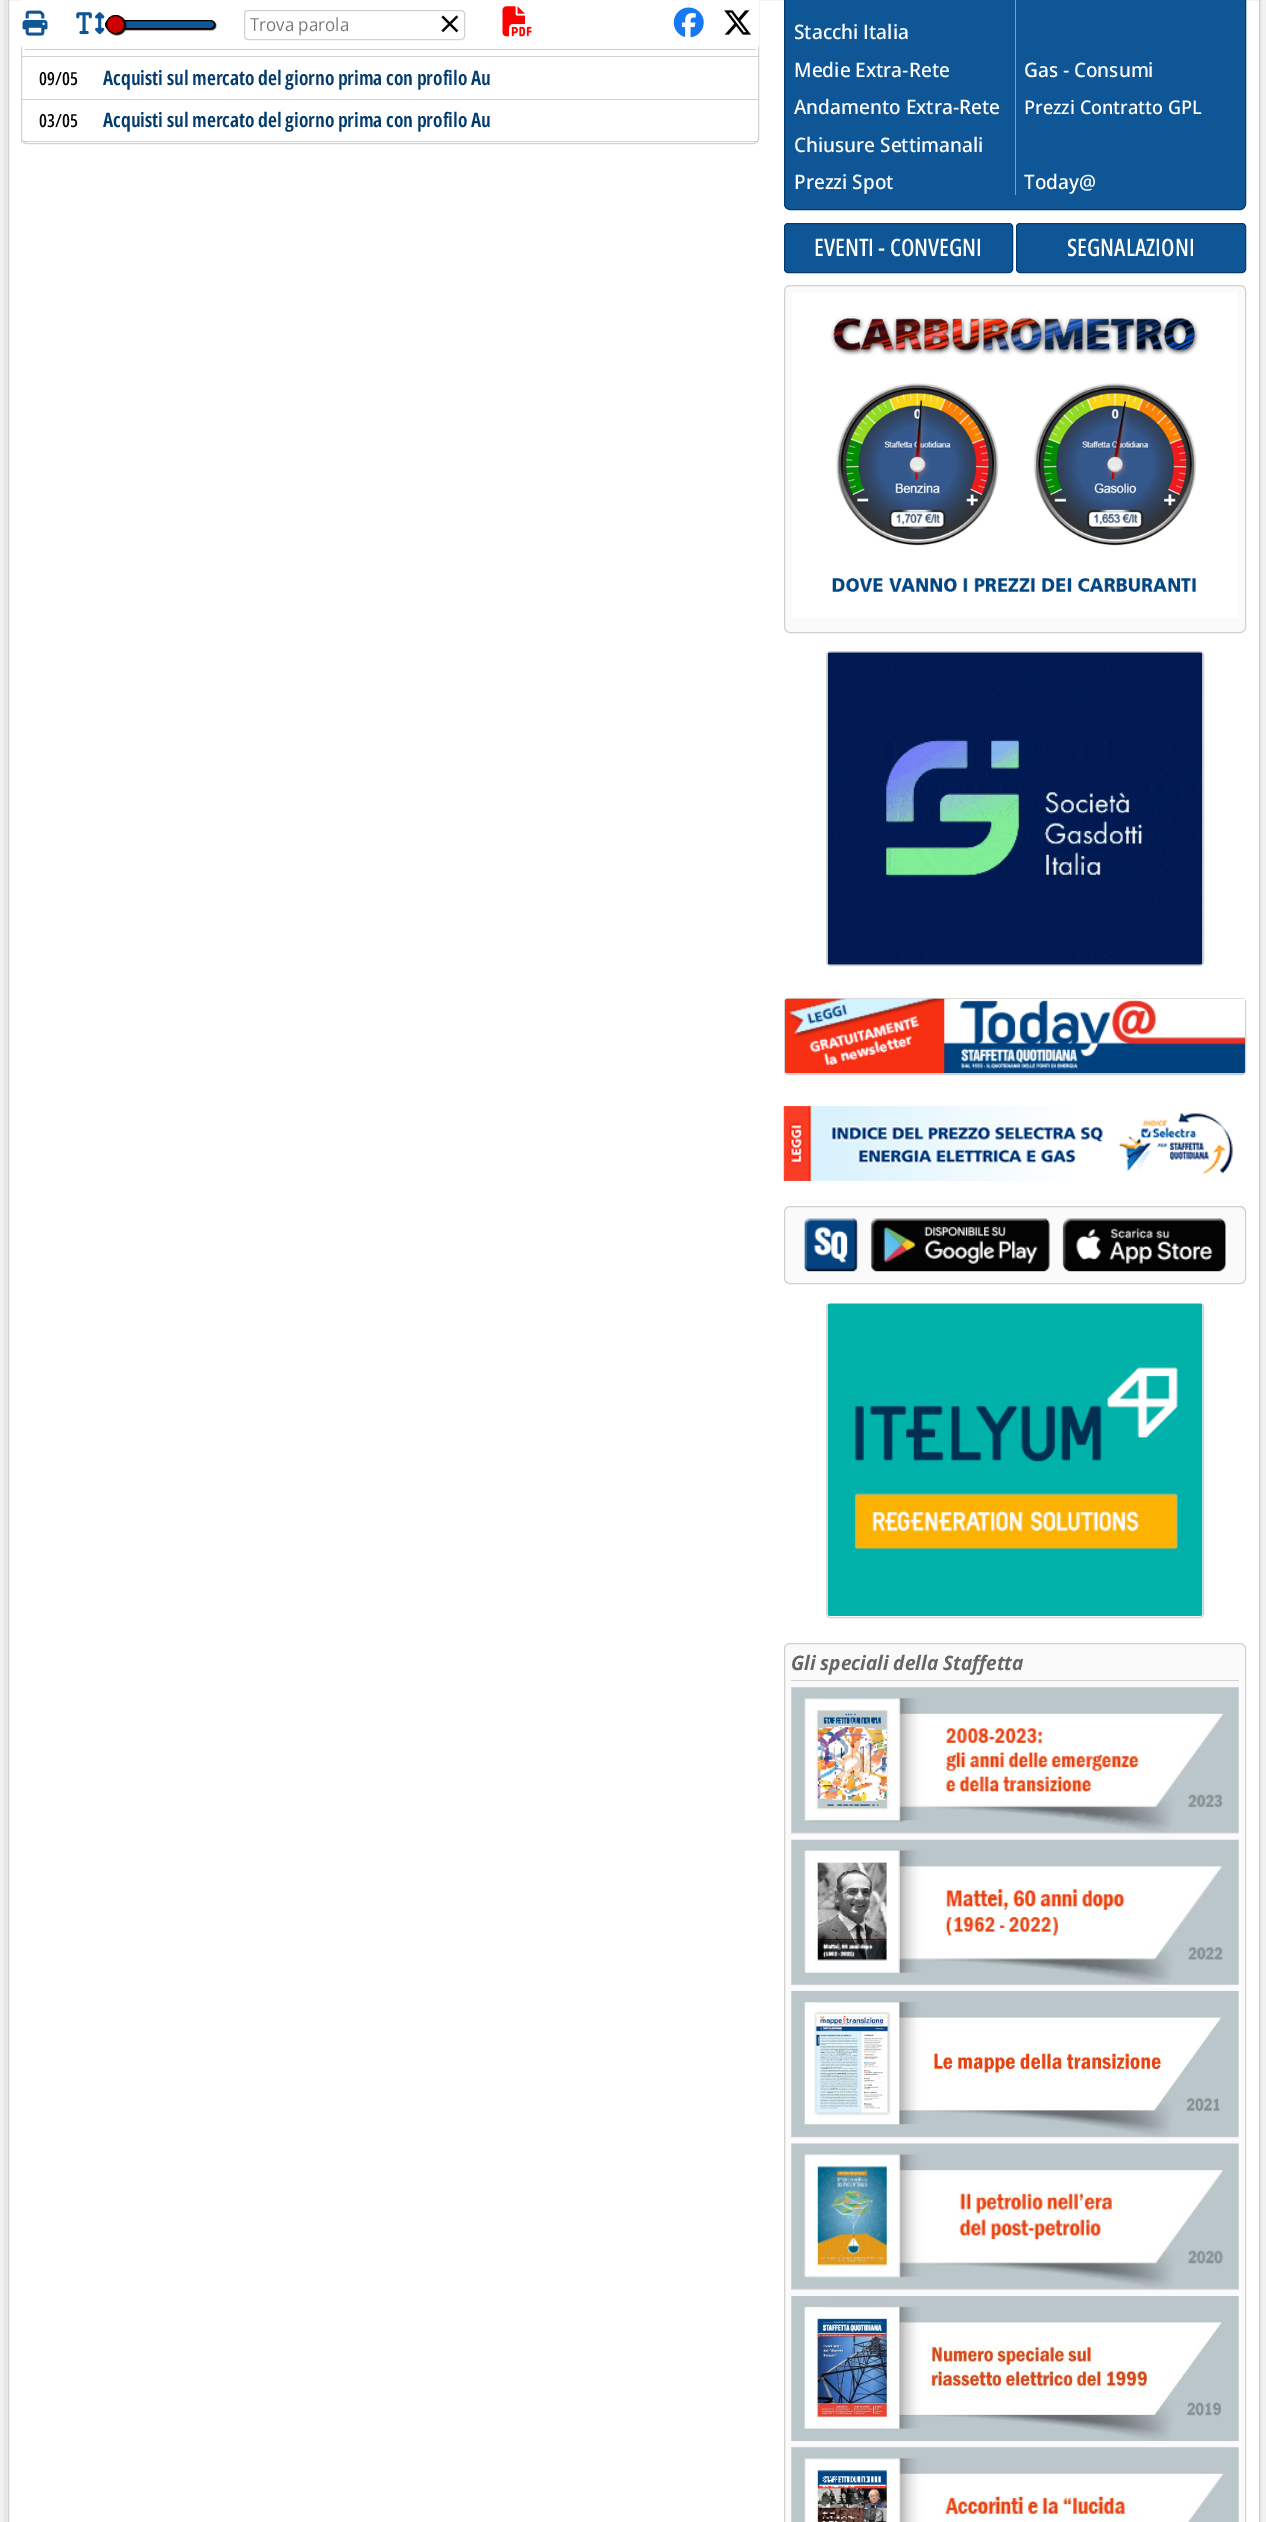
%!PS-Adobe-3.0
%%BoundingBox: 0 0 1266 2522
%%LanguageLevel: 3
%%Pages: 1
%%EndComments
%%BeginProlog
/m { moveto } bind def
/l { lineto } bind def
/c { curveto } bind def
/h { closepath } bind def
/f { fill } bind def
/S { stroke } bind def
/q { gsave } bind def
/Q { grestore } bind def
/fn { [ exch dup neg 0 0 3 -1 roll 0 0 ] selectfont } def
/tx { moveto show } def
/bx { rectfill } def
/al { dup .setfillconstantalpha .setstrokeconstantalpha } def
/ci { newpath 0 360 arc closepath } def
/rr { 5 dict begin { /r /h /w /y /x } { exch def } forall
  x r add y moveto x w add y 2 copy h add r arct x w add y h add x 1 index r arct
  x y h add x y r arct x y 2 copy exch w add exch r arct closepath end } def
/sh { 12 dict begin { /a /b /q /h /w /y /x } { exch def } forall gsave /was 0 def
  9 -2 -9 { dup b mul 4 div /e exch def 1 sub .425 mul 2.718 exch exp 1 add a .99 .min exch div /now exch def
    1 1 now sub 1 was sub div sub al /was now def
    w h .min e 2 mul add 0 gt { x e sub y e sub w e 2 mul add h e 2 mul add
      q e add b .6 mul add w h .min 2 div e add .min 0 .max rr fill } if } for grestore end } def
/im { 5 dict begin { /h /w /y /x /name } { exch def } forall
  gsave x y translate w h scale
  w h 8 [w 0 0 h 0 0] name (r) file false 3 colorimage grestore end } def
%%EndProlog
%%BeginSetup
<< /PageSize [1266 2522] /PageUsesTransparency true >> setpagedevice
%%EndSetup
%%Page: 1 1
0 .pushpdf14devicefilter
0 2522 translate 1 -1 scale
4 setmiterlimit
1 setgray
0 0 1266 2522 bx
q
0 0 m 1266 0 l 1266 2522 l 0 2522 l h 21 -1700 m 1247 -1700 l 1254 -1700 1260 -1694 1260 -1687 c 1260 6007 l 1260 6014 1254 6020 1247 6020 c 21 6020 l 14 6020 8 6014 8 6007 c 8 -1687 l 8 -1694 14 -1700 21 -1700 c h eoclip newpath
0.82 setgray
6 -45 1253 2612 13 10.5 1 sh
Q
0.82 setgray
8.5 -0.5 1251 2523 rectstroke
34 -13.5 m 746 -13.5 l 753 -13.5 758.5 -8 758.5 -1 c 758.5 138 l 758.5 141 756 143.5 753 143.5 c 27 143.5 l 24 143.5 21.5 141 21.5 138 c 21.5 -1 l 21.5 -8 27 -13.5 34 -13.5 c h S
1 setgray
21 0 m 759 0 l 759 44 l 759 47.5 756.5 50 753 50 c 27 50 l 23.5 50 21 47.5 21 44 c h f
0.82 setgray
25 49 731 1 bx
(image0.raw) 22 10 26 26 im
0 setgray
106 21 110 9 4.5 0.5 1 sh
(image1.raw) 76 12 29 23 im
0.059 0.337 0.588 setrgbcolor
105.5 20.5 109 8 4 rr q f Q
0 setgray
S
108 16 18 19 9 0.5 1 sh
0.8 0 0 setrgbcolor
115.5 24.5 9 ci q f Q
0 setgray
S
0.82 setgray
244.5 10.5 220 29 3.5 rr S
/OpenSans-Regular 18 fn
0.459 setgray
(Trova parola) 250 31 tx
/OpenSans-Regular 40 fn
0 setgray
(×) 439 38 tx
(image2.raw) 502 6 30 31 im
(image3.raw) 673 7 31 31 im
(image4.raw) 724 10 27 25 im
0.82 setgray
21 56 737 1 bx
/OpenSans-Medium 18 fn
0 setgray
(09/05) 39 85 tx
0.82 setgray
21 99 737 1 bx
/OpenSans-SemiBold 20 fn
0.012 0.231 0.431 setrgbcolor
(Acquisti sul mercato del giorno prima con profilo Au) 103 85 tx
/OpenSans-Medium 18 fn
0 setgray
(03/05) 39 127 tx
0.82 setgray
21 141 737 1 bx
/OpenSans-SemiBold 20 fn
0.012 0.231 0.431 setrgbcolor
(Acquisti sul mercato del giorno prima con profilo Au) 103 127 tx
0.059 0.337 0.588 setrgbcolor
784.5 -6.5 461 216 5.5 rr q f Q
0.012 0.231 0.431 setrgbcolor
S
/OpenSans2-Medium 20 fn
1 setgray
(Stacchi Italia) 794 39 tx
(Medie Extra-Rete) 794 77 tx
(Andamento Extra-Rete) 794 114 tx
(Chiusure Settimanali) 794 152 tx
(Prezzi Spot) 794 189 tx
0.6 setgray
1015 0 1 195 bx
1 setgray
(Gas - Consumi) 1024 77 tx
/OpenSans2-Medium 19 fn
(Prezzi Contratto GPL) 1024 114 tx
/OpenSans2-Medium 20 fn
(Today@) 1024 189 tx
0.059 0.337 0.588 setrgbcolor
784.5 223.5 228 49 3.5 rr q f Q
0.012 0.231 0.431 setrgbcolor
S
/OpenSans-Medium 24 fn
1 setgray
(EVENTI - CONVEGNI) 814 256 tx
0.059 0.337 0.588 setrgbcolor
1016.5 223.5 229 49 3.5 rr q f Q
0.012 0.231 0.431 setrgbcolor
S
1 setgray
(SEGNALAZIONI) 1067 256 tx
0.98 setgray
784.5 285.5 461 347 5.5 rr q f Q
0.82 setgray
S
(image5.raw) 792 293 446 325 im
826.5 651.5 377 314 3.5 rr S
(image6.raw) 827 652 376 313 im
784.5 998.5 461 76 3.5 rr S
(image7.raw) 785 998 460 76 im
(image8.raw) 783 1106 450 75 im
0.98 setgray
784.5 1206.5 461 77 5.5 rr q f Q
0.82 setgray
S
(image9.raw) 804 1218 422 54 im
826.5 1303.5 377 314 3.5 rr S
(image10.raw) 827 1303 376 313 im
0.98 setgray
784.5 1643.5 461 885 5.5 rr q f Q
0.82 setgray
S
791 1680 448 1 bx
/OpenSans-BoldItalic 20 fn
0.4 setgray
(Gli speciali della Staffetta) 791 1670 tx
(image11.raw) 791 1687 448 147 im
(image12.raw) 791 1839 448 146 im
(image13.raw) 791 1991 448 147 im
(image14.raw) 791 2143 448 147 im
(image15.raw) 791 2296 448 145 im
(image16.raw) 791 2447 448 75 im
.poppdf14devicefilter showpage
%%EOF
